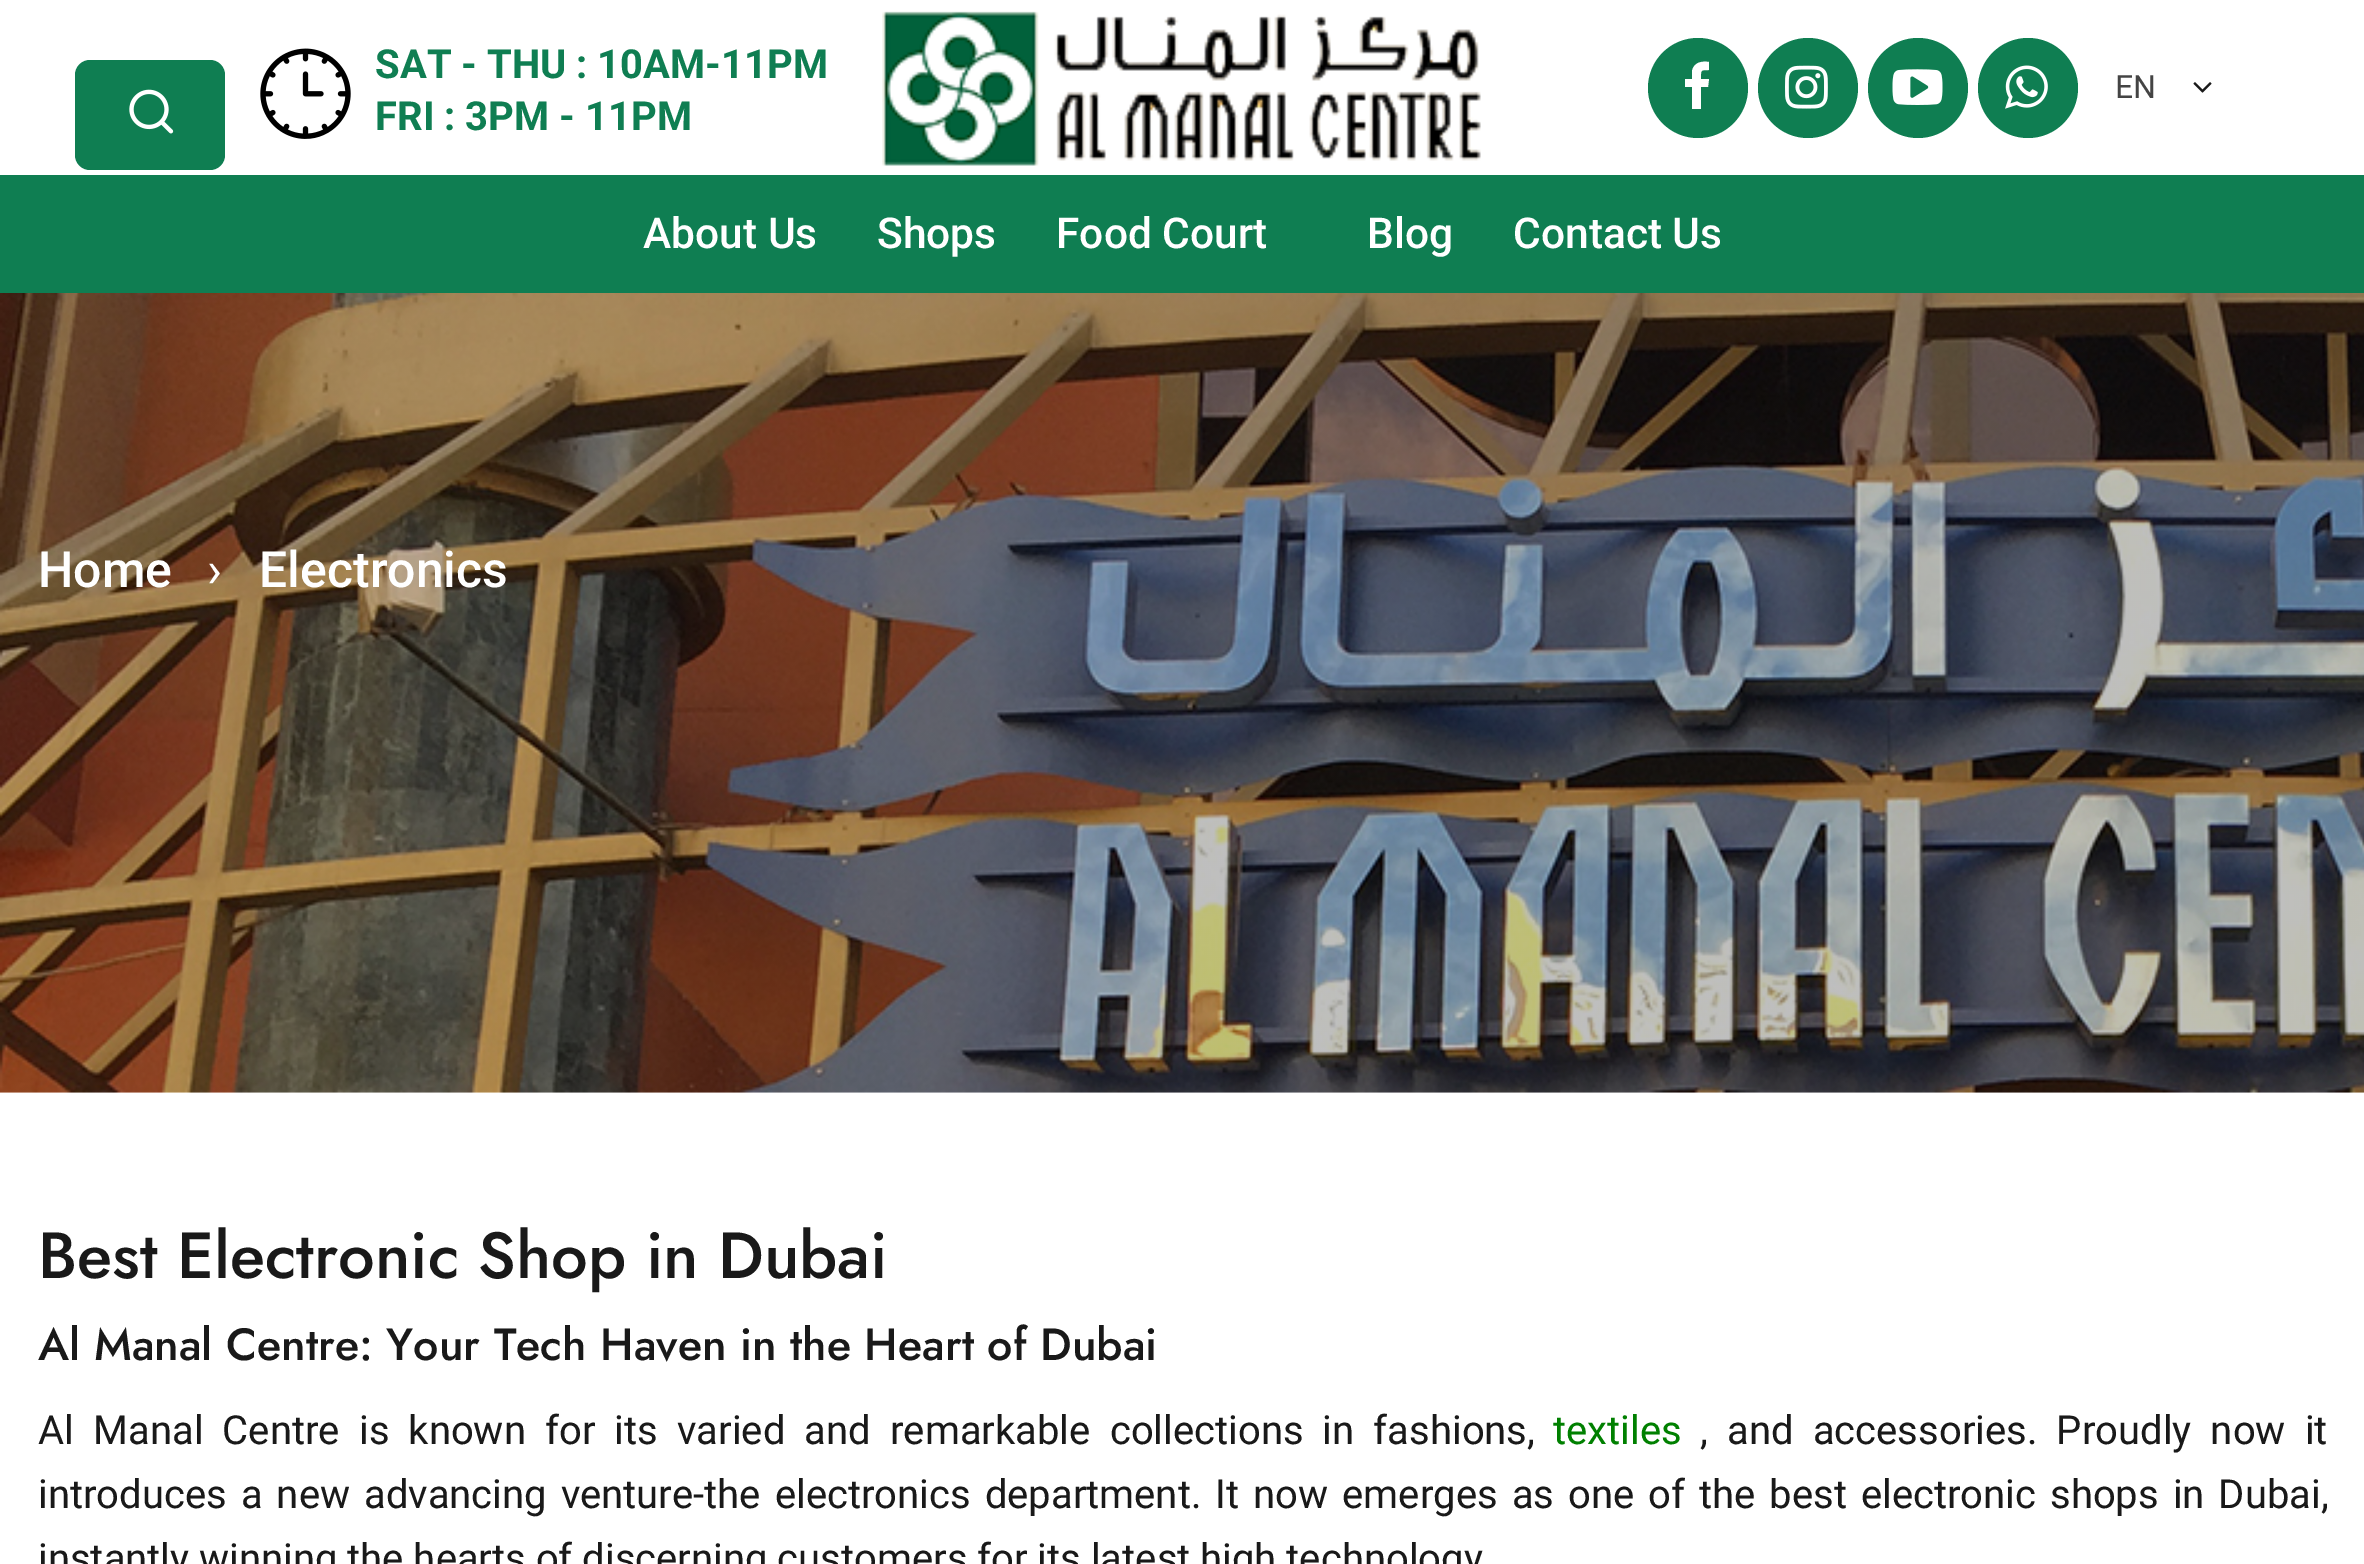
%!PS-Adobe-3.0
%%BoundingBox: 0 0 2364 1564
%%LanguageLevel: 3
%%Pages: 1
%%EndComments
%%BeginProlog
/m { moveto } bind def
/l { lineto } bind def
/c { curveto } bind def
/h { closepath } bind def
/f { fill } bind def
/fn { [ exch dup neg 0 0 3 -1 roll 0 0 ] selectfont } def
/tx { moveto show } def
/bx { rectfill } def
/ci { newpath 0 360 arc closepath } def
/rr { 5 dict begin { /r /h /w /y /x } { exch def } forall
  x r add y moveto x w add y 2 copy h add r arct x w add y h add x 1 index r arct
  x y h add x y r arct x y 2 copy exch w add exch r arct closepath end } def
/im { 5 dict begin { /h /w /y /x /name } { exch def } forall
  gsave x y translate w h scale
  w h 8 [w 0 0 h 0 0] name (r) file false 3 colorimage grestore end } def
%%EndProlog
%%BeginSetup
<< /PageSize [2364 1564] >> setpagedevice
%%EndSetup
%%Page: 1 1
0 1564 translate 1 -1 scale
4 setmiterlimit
1 setgray
0 0 2364 1564 bx
0.059 0.494 0.322 setrgbcolor
75 60 150 110 15 rr f
(image0.raw) 129 89 45 45 im
(image1.raw) 260 48 91 91 im
/Roboto-Bold 40 fn
(SAT - THU : 10AM-11PM) 375 78 tx
(FRI : 3PM - 11PM) 375 130 tx
(image2.raw) 882 11 599 155 im
1698 88 50 ci f
1 setgray
1709 62 m 1709 70 l 1700 70 1701 70 1701 79 c 1709 79 l 1708 87 l 1701 87 l 1701 109 l 1692 109 l 1692 87 l 1685 87 l 1685 79 l 1692 79 l 1692 71 l 1694 62 1702 61 1709 62 c h f
0.059 0.494 0.322 setrgbcolor
1808 88 50 ci f
(image3.raw) 1785 65 43 44 im
1918 88 50 ci f
(image4.raw) 1892 69 51 36 im
2028 88 50 ci f
(image5.raw) 2005 65 43 44 im
/Roboto-Regular 32 fn
0.267 setgray
(EN) 2115 98 tx
(image6.raw) 2193 82 19 11 im
0.059 0.494 0.322 setrgbcolor
0 175 2364 118 bx
/Roboto-Medium 42.5 fn
1 setgray
(About Us) 643 248 tx
(Shops) 877 248 tx
(Food Court) 1056 248 tx
(Blog) 1367 248 tx
(Contact Us) 1513 248 tx
(image7.raw) 0 293 2364 800 im
/Roboto-Medium 50 fn
(Home) 38 587 tx
/Roboto-Regular 50 fn
(›) 207 587 tx
/Roboto-Medium 50 fn
(Electronics) 259 587 tx
/Jost-Medium 65 fn
0.098 setgray
(Best Electronic Shop in Dubai) 38 1278 tx
/Jost-Medium 45 fn
(Al Manal Centre: Your Tech Haven in the Heart of Dubai) 38 1360 tx
/Roboto-Regular 40 fn
38 1444 m 9.25 0 32 (Al Manal Centre is known for its varied and remarkable collections in fashions,) widthshow
0 0.502 0 setrgbcolor
(textiles) 1553 1444 tx
0.098 setgray
1700 1444 m 9.25 0 32 (, and accessories. Proudly now it) widthshow
38 1508 m 4.1 0 32 (introduces a new advancing venture-the electronics department. It now emerges as one of the best electronic shops in Dubai,) widthshow
(instantly winning the hearts of discerning customers for its latest high technology) 38 1572 tx
showpage
%%EOF
